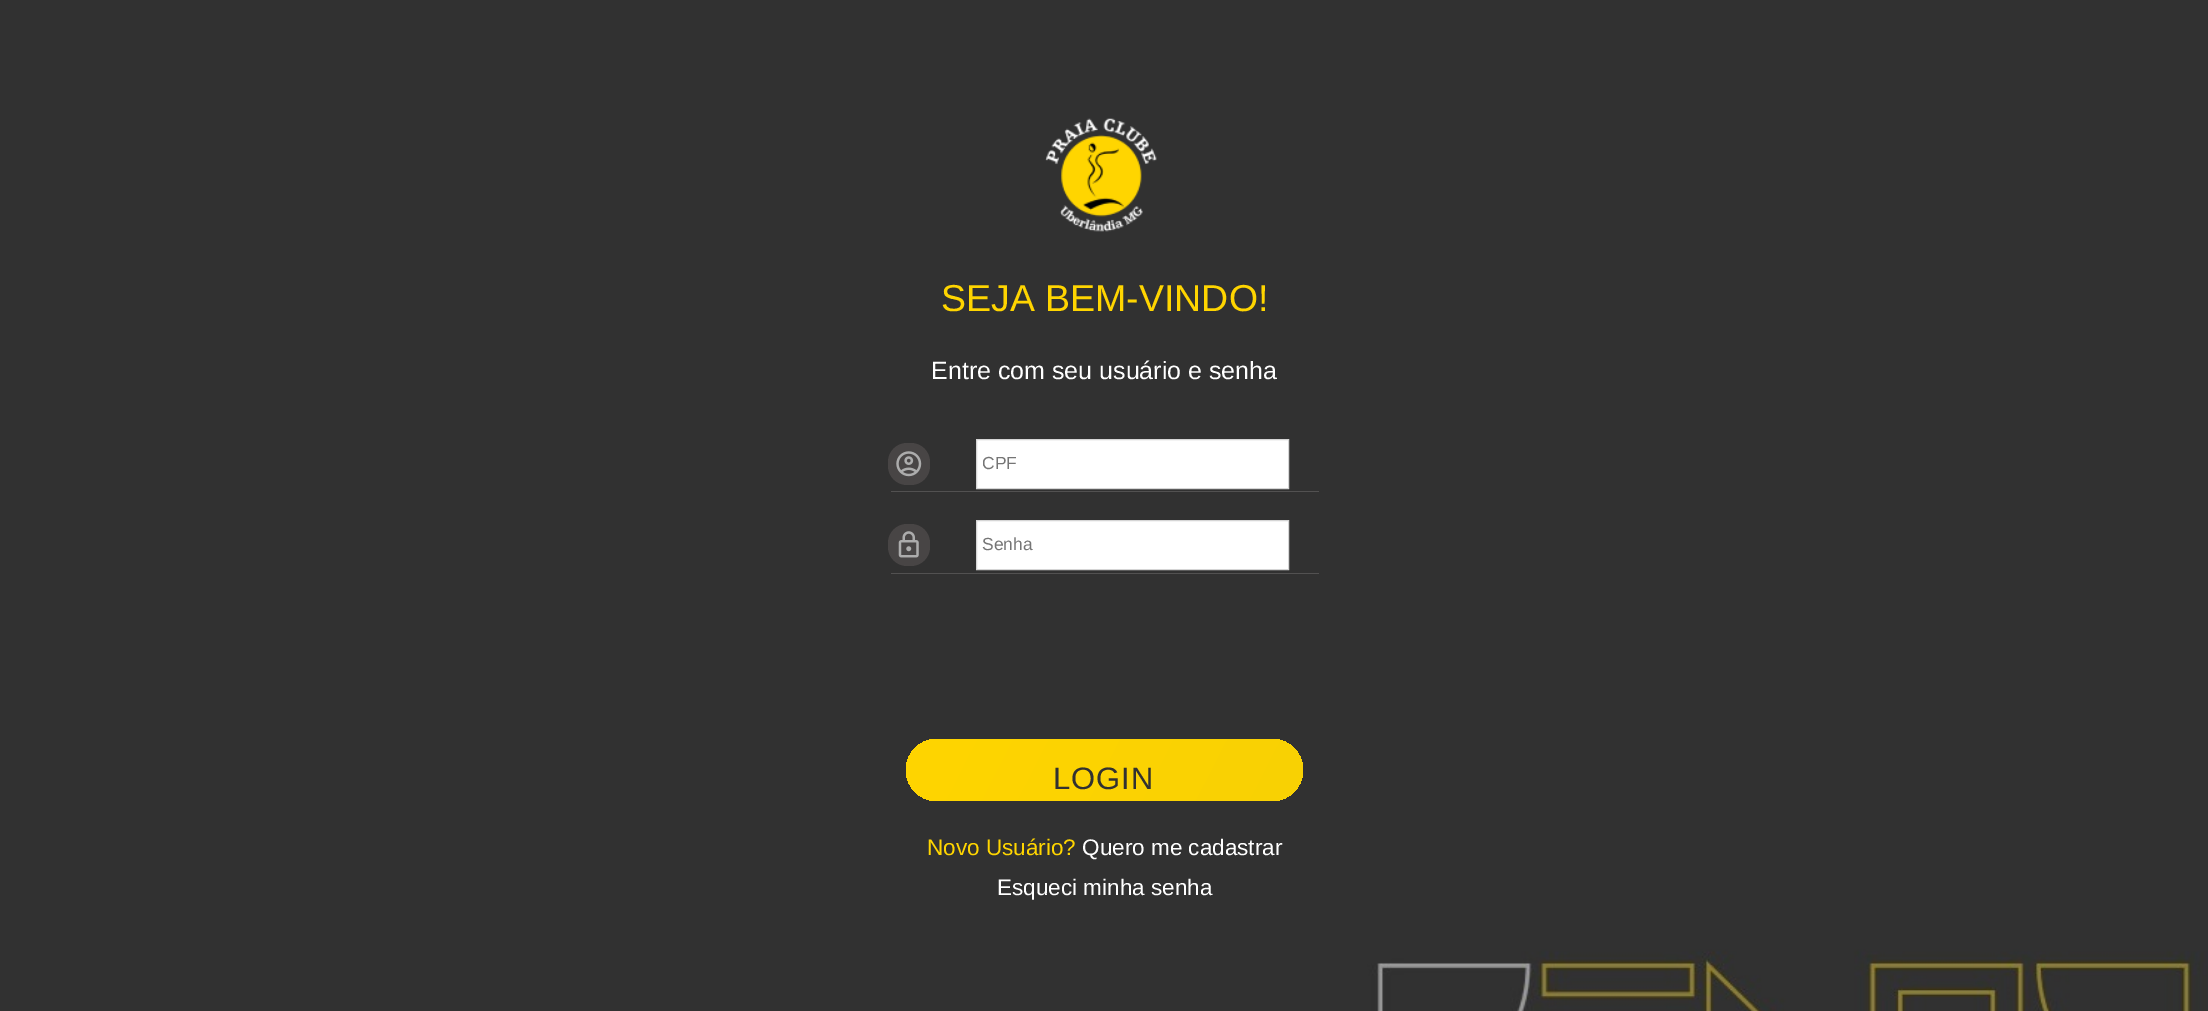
%!PS-Adobe-3.0
%%BoundingBox: 0 0 2208 1011
%%LanguageLevel: 3
%%Pages: 1
%%EndComments
%%BeginProlog
/m { moveto } bind def
/l { lineto } bind def
/h { closepath } bind def
/f { fill } bind def
/S { stroke } bind def
/q { gsave } bind def
/Q { grestore } bind def
/fn { [ exch dup neg 0 0 3 -1 roll 0 0 ] selectfont } def
/tx { moveto show } def
/bx { rectfill } def
/rr { 5 dict begin { /r /h /w /y /x } { exch def } forall
  x r add y moveto x w add y 2 copy h add r arct x w add y h add x 1 index r arct
  x y h add x y r arct x y 2 copy exch w add exch r arct closepath end } def
/im { 5 dict begin { /h /w /y /x /name } { exch def } forall
  gsave x y translate w h scale
  w h 8 [w 0 0 h 0 0] name (r) file false 3 colorimage grestore end } def
%%EndProlog
%%BeginSetup
<< /PageSize [2208 1011] >> setpagedevice
%%EndSetup
%%Page: 1 1
0 1011 translate 1 -1 scale
4 setmiterlimit
1 setgray
0 0 2208 1011 bx
(image0.raw) 0 0 2208 1011 im
(image1.raw) 1045 118 112 114 im
/LiberationSans-Regular 37.5 fn
1 0.835 0 setrgbcolor
(SEJA BEM-VINDO!) 941 311 tx
/LiberationSans-Regular 25 fn
1 setgray
(Entre com seu usuário e senha) 931 379 tx
0.322 0.318 0.318 setrgbcolor
891 491 428 1 bx
0.282 0.271 0.271 setrgbcolor
888 443 42 42 19 rr f
(image2.raw) 896 451 26 26 im
1 setgray
976.5 439.5 m 1288.5 439.5 l 1288.5 488.5 l 976.5 488.5 l h q f Q
0.835 setgray
S
q
983 453 300 20 rectclip
/LiberationSans-Regular 17.5 fn
0.459 setgray
(CPF) 982 469 tx
Q
0.322 0.318 0.318 setrgbcolor
891 573 428 1 bx
0.282 0.271 0.271 setrgbcolor
888 524 42 42 19 rr f
(image3.raw) 898 531 21 27 im
1 setgray
976.5 520.5 m 1288.5 520.5 l 1288.5 569.5 l 976.5 569.5 l h q f Q
0.835 setgray
S
/LiberationSans-Regular 17.5 fn
0.459 setgray
(Senha) 982 550 tx
q 906 739 397 62 31 rr clip newpath
<< /ShadingType 2 /ColorSpace /DeviceRGB /Coords [934 683 1274 857] /Extend [true true] /Function << /FunctionType 2 /Domain [0 1] /C0 [1 0.835 0] /C1 [0.973 0.82 0.016] /N 1 >> >> shfill Q
/LiberationSans-Regular 31 fn
0.192 setgray
1053 789 m 1 0 (LOGIN) ashow
/LiberationSans-Regular 22.5 fn
1 0.835 0 setrgbcolor
(Novo Usuário?) 927 855 tx
1 setgray
(Quero me cadastrar) 1082 855 tx
(Esqueci minha senha) 997 895 tx
showpage
%%EOF
